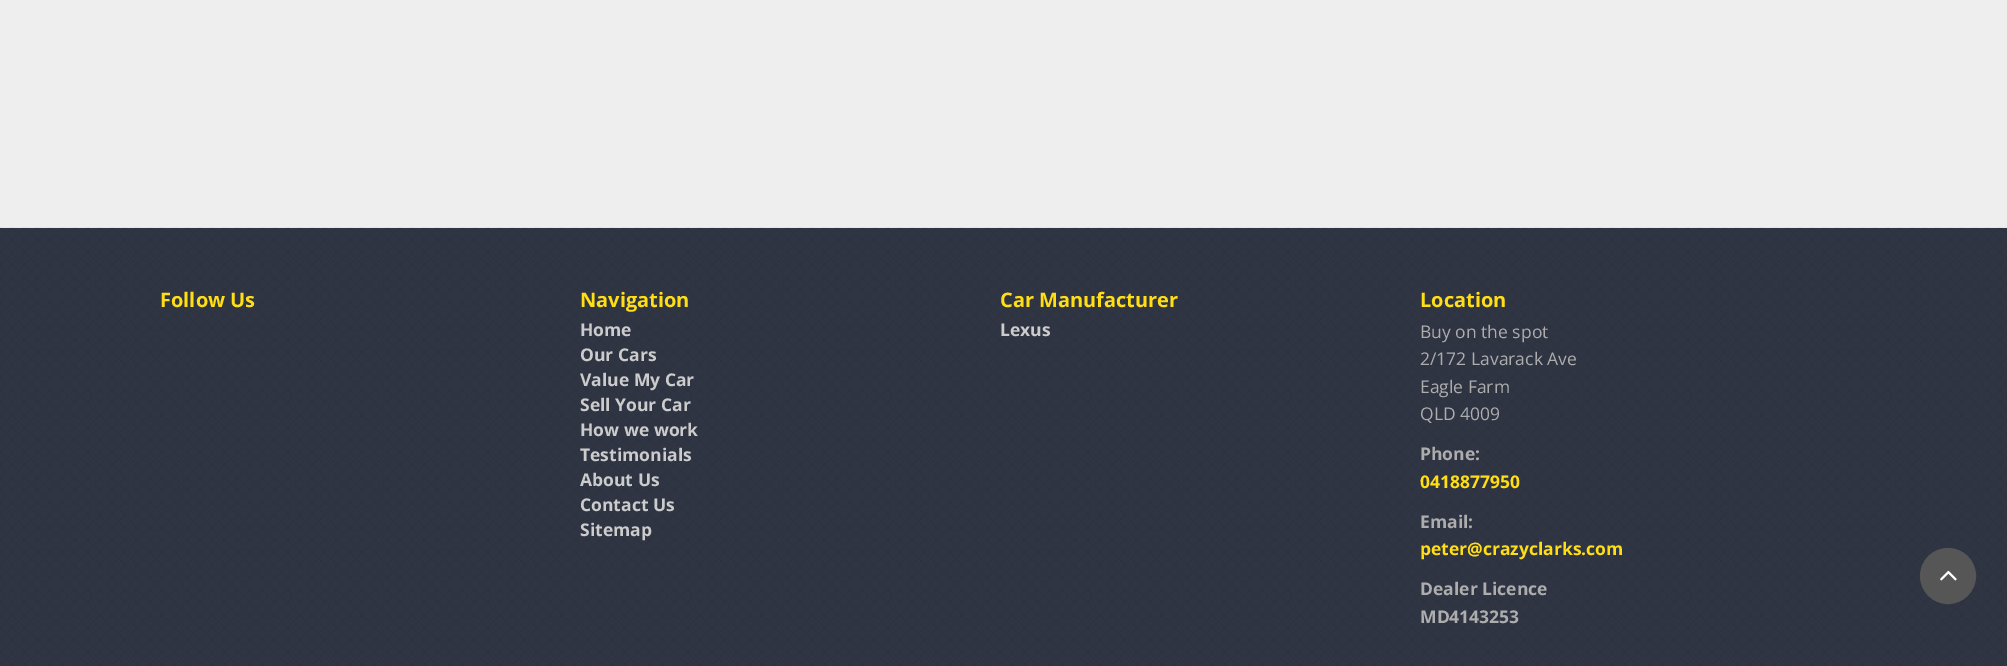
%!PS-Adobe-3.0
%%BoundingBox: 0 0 2007 666
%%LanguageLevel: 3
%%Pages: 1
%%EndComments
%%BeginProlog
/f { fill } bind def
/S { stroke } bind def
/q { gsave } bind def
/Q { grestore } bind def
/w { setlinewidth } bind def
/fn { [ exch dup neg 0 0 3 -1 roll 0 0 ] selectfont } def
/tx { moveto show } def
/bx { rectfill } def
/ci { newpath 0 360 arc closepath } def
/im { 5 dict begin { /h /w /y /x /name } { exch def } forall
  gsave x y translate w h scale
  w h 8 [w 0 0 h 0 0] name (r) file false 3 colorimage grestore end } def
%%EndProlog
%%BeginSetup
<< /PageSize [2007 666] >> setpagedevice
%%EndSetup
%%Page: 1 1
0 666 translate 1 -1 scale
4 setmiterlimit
0.933 setgray
0 0 2007 666 bx
0.196 0.216 0.275 setrgbcolor
0 228 2007 438 bx
(image0.raw) 0 227 2007 439 im
/OpenSans-Bold 20 fn
1 0.871 0.086 setrgbcolor
(Follow Us) 160 307 tx
(Navigation) 580 307 tx
/OpenSans-Bold 17.5 fn
0.8 setgray
(Home) 580 336 tx
(Our Cars) 580 361 tx
(Value My Car) 580 386 tx
(Sell Your Car) 580 411 tx
(How we work) 580 436 tx
(Testimonials) 580 461 tx
(About Us) 580 486 tx
(Contact Us) 580 511 tx
(Sitemap) 580 536 tx
/OpenSans-Bold 20 fn
1 0.871 0.086 setrgbcolor
(Car Manufacturer) 1000 307 tx
/OpenSans-Bold 17.5 fn
0.8 setgray
(Lexus) 1000 336 tx
/OpenSans-Bold 20 fn
1 0.871 0.086 setrgbcolor
(Location) 1420 307 tx
/OpenSans-Regular 17.5 fn
0.678 setgray
(Buy on the spot) 1420 338 tx
(2/172 Lavarack Ave) 1420 365 tx
(Eagle Farm) 1420 393 tx
(QLD 4009) 1420 420 tx
/OpenSans-Bold 17.5 fn
(Phone:) 1420 460 tx
1 0.871 0.086 setrgbcolor
(0418877950) 1420 488 tx
0.678 setgray
(Email:) 1420 528 tx
1 0.871 0.086 setrgbcolor
(peter@crazyclarks.com) 1420 555 tx
0.678 setgray
(Dealer Licence) 1420 595 tx
(MD4143253) 1420 623 tx
0.337 setgray
1948 576 26.5 ci q f Q
3 w
S
(image1.raw) 1940 570 17 11 im
showpage
%%EOF
